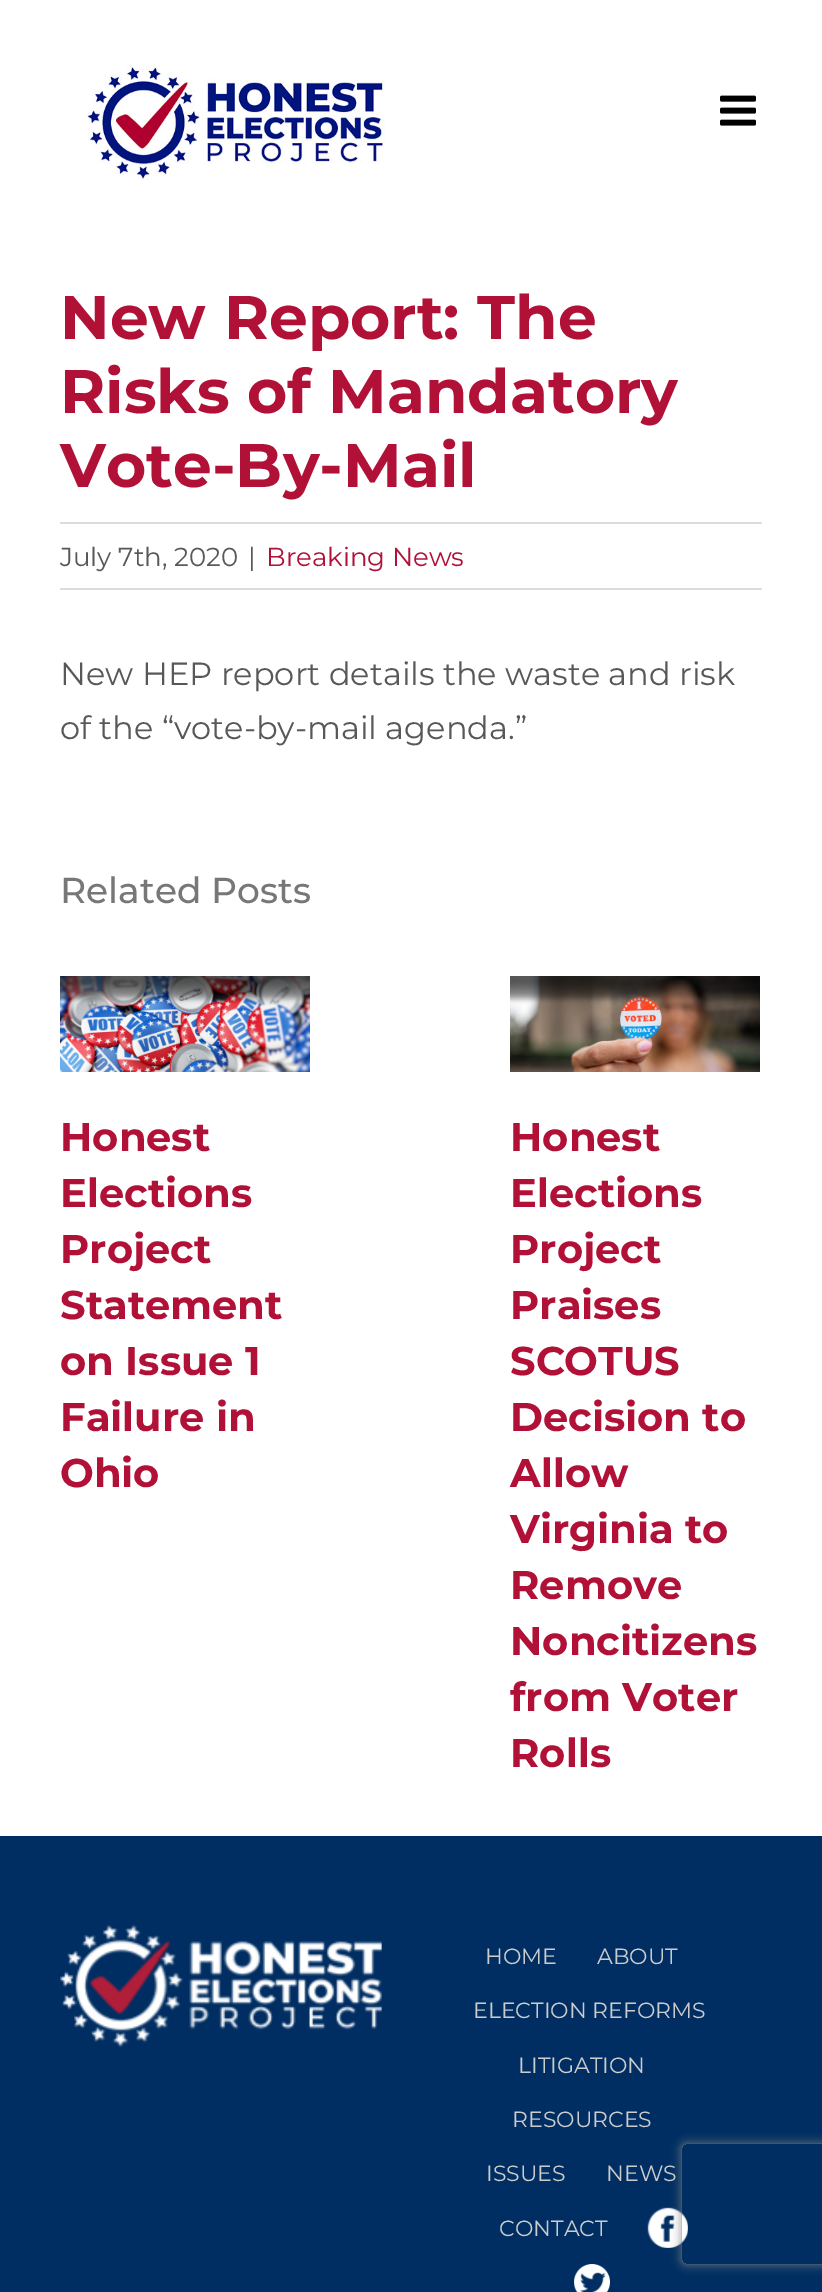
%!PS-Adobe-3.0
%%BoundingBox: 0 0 822 2292
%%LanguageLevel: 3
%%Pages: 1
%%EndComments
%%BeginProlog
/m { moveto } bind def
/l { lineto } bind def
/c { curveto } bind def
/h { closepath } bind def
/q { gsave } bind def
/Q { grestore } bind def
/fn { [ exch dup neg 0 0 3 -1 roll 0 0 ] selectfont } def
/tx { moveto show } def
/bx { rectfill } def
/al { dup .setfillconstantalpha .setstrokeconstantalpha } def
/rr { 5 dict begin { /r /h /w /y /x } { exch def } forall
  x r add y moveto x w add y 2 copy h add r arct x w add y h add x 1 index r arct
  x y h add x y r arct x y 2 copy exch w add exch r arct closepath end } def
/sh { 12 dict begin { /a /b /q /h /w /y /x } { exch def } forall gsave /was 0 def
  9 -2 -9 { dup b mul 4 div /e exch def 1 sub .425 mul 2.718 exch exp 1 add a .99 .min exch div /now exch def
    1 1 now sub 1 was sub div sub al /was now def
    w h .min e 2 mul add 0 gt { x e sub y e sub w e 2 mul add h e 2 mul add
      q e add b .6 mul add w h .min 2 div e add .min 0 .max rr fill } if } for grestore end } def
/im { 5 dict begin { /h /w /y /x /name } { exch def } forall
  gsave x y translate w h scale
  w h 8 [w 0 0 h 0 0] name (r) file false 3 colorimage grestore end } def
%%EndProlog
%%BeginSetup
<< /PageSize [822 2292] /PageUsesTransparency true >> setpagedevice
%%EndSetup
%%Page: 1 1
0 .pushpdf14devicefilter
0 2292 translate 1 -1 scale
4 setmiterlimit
1 setgray
0 0 822 2292 bx
(image0.raw) 87 63 298 117 im
(image1.raw) 720 95 36 31 im
/Montserrat-Bold 61.5 fn
0.694 0.063 0.216 setrgbcolor
(New Report: The) 60 339 tx
(Risks of Mandatory) 60 413 tx
(Vote-By-Mail) 60 487 tx
0.867 0.859 0.859 setrgbcolor
60 522 702 2 bx
60 588 702 2 bx
/Montserrat-Regular 26 fn
0.345 setgray
(July 7th, 2020) 60 566 tx
(|) 248 566 tx
0.694 0.063 0.216 setrgbcolor
(Breaking News) 266 566 tx
/Montserrat-Regular 32 fn
0.345 setgray
(New HEP report details the waste and risk) 60 685 tx
(of the “vote-by-mail agenda.”) 60 739 tx
/Montserrat-Medium 36 fn
0.467 setgray
(Related Posts) 60 903 tx
(image2.raw) 60 976 250 96 im
/Montserrat-Bold 40 fn
0.694 0.063 0.216 setrgbcolor
(Honest) 60 1151 tx
(Elections) 60 1207 tx
(Project) 60 1263 tx
(Statement) 60 1319 tx
(on Issue 1) 60 1375 tx
(Failure in) 60 1431 tx
(Ohio) 60 1487 tx
(image3.raw) 510 976 250 96 im
(Honest) 510 1151 tx
(Elections) 510 1207 tx
(Project) 510 1263 tx
(Praises) 510 1319 tx
(SCOTUS) 510 1375 tx
(Decision to) 510 1431 tx
(Allow) 510 1487 tx
(Virginia to) 510 1543 tx
(Remove) 510 1599 tx
(Noncitizens) 510 1655 tx
(from Voter) 510 1711 tx
(Rolls) 510 1767 tx
0 0.18 0.384 setrgbcolor
0 1836 822 456 bx
(image4.raw) 60 1925 322 123 im
/Montserrat-Regular 22 fn
0.8 setgray
(HOME) 485 1964 tx
(ABOUT) 597 1964 tx
(ELECTION REFORMS) 473 2018 tx
(LITIGATION) 518 2073 tx
(RESOURCES) 512 2127 tx
(ISSUES) 486 2181 tx
(NEWS) 606 2181 tx
(CONTACT) 499 2236 tx
(image5.raw) 647 2207 41 41 im
(image6.raw) 574 2264 36 28 im
q
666 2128 m 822 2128 l 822 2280 l 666 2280 l h 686 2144 m 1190 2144 l 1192 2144 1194 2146 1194 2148 c 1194 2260 l 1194 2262 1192 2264 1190 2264 c 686 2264 l 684 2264 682 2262 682 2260 c 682 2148 l 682 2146 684 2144 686 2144 c h eoclip newpath
0.502 setgray
682 2144 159 120 4 5 1 sh
Q
.poppdf14devicefilter showpage
%%EOF
